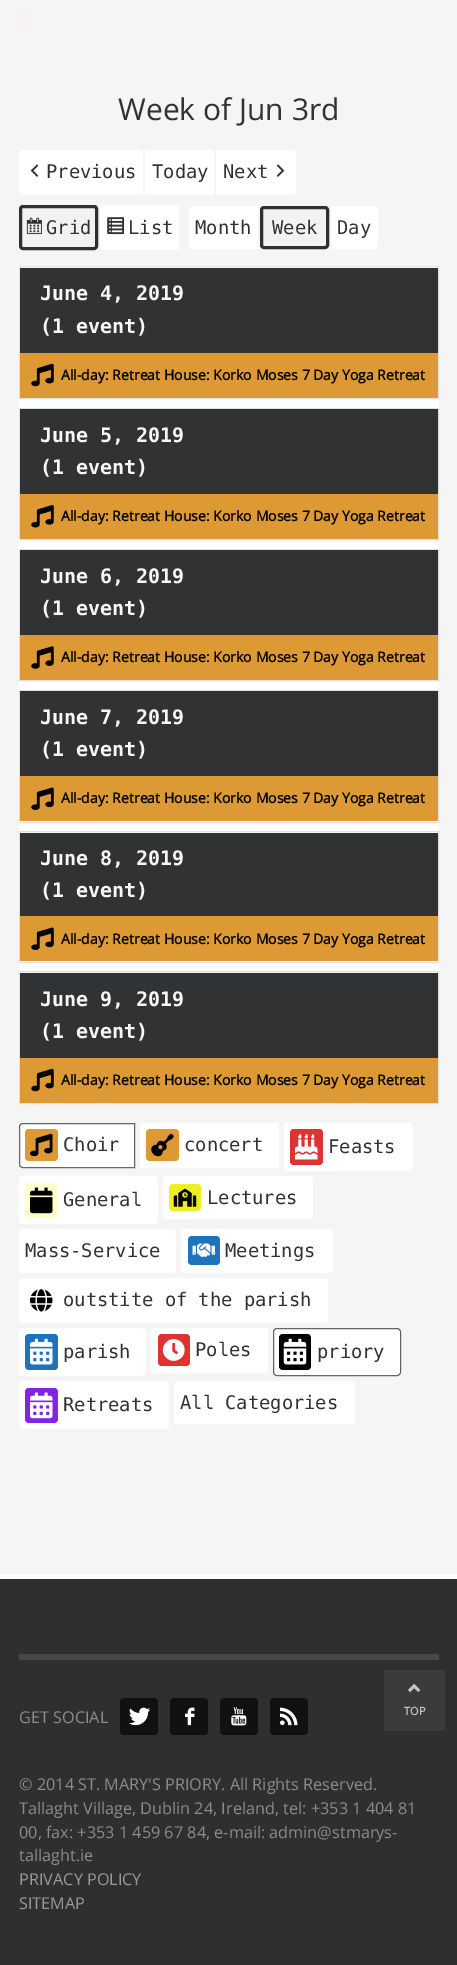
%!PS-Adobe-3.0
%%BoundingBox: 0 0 457 1965
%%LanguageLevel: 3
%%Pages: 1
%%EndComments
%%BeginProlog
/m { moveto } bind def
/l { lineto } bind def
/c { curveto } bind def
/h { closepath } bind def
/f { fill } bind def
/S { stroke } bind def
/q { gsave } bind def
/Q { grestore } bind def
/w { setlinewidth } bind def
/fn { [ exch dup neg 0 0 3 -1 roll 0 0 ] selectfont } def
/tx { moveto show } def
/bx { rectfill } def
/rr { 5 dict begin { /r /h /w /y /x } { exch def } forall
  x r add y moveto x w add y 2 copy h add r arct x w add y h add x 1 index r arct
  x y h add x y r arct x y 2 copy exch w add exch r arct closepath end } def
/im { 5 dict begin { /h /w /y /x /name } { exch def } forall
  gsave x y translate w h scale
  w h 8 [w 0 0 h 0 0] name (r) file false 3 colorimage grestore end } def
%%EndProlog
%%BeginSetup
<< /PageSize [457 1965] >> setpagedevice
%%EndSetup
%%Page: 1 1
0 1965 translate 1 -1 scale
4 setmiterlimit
0.961 setgray
0 0 457 1965 bx
0.976 0.949 0.957 setrgbcolor
19 6 10 25 5 rr f
/OpenSans-Regular 30 fn
0.192 0.196 0.2 setrgbcolor
(Week of Jun 3rd) 118 120 tx
1 setgray
23 150 m 143 150 l 143 195 l 23 195 l 21 195 19 193 19 191 c 19 154 l 19 152 21 150 23 150 c h f
(image0.raw) 30 164 8 14 im
/DejaVuSansMono-Regular 18.75 fn
0.192 0.196 0.2 setrgbcolor
(Previous) 46 178 tx
1 setgray
145 150 69 45 bx
0.192 0.196 0.2 setrgbcolor
(Today) 152 178 tx
1 setgray
216 150 m 292 150 l 294 150 296 152 296 154 c 296 191 l 296 193 294 195 292 195 c 216 195 l h f
0.192 0.196 0.2 setrgbcolor
(Next) 223 178 tx
(image1.raw) 277 164 8 14 im
0.949 setgray
19 205 79 45 4 rr f
(image2.raw) 26 217 16 18 im
0.184 0.188 0.188 setrgbcolor
3 w
20.5 206.5 76 42 2.5 rr S
0.192 0.196 0.2 setrgbcolor
(Grid) 46 234 tx
1 setgray
100 205 79 45 bx
(image3.raw) 107 217 18 18 im
0.192 0.196 0.2 setrgbcolor
(List) 128 234 tx
1 setgray
193 206 m 258 206 l 258 249 l 193 249 l 191 249 189 247 189 245 c 189 210 l 189 208 191 206 193 206 c h f
0.192 0.196 0.2 setrgbcolor
(Month) 195 234 tx
0.949 setgray
260 206 69 43 4 rr f
0.184 0.188 0.188 setrgbcolor
261.5 207.5 66 40 2.5 rr S
0.192 0.196 0.2 setrgbcolor
(Week) 272 234 tx
1 setgray
331 206 m 374 206 l 376 206 378 208 378 210 c 378 245 l 378 247 376 249 374 249 c 331 249 l h f
0.192 0.196 0.2 setrgbcolor
(Day) 337 234 tx
1 setgray
19 267 420 706 bx
0.878 setgray
1 w
19.5 266.5 419 132 rectstroke
0.192 0.196 0.2 setrgbcolor
20 268 418 85 bx
/DejaVuSansMono-Bold 20 fn
0.965 0.969 0.969 setrgbcolor
(June 4, 2019) 40 300 tx
(\(1 event\)) 40 333 tx
0.867 0.6 0.2 setrgbcolor
20 353 418 45 bx
(image4.raw) 31 363 23 24 im
/OpenSans-Bold 14.05 fn
0 setgray
(All-day: Retreat House: Korko Moses 7 Day Yoga Retreat) 61 380 tx
0.878 setgray
19.5 408.5 419 131 rectstroke
0.192 0.196 0.2 setrgbcolor
20 409 418 85 bx
/DejaVuSansMono-Bold 20 fn
0.965 0.969 0.969 setrgbcolor
(June 5, 2019) 40 442 tx
(\(1 event\)) 40 474 tx
0.867 0.6 0.2 setrgbcolor
20 494 418 45 bx
(image5.raw) 31 505 23 23 im
/OpenSans-Bold 14.05 fn
0 setgray
(All-day: Retreat House: Korko Moses 7 Day Yoga Retreat) 61 521 tx
0.878 setgray
19.5 549.5 419 131 rectstroke
0.192 0.196 0.2 setrgbcolor
20 550 418 85 bx
/DejaVuSansMono-Bold 20 fn
0.965 0.969 0.969 setrgbcolor
(June 6, 2019) 40 583 tx
(\(1 event\)) 40 615 tx
0.867 0.6 0.2 setrgbcolor
20 635 418 45 bx
(image6.raw) 31 646 23 23 im
/OpenSans-Bold 14.05 fn
0 setgray
(All-day: Retreat House: Korko Moses 7 Day Yoga Retreat) 61 662 tx
0.878 setgray
19.5 690.5 419 132 rectstroke
0.192 0.196 0.2 setrgbcolor
20 691 418 85 bx
/DejaVuSansMono-Bold 20 fn
0.965 0.969 0.969 setrgbcolor
(June 7, 2019) 40 724 tx
(\(1 event\)) 40 756 tx
0.867 0.6 0.2 setrgbcolor
20 776 418 45 bx
(image7.raw) 31 787 23 23 im
/OpenSans-Bold 14.05 fn
0 setgray
(All-day: Retreat House: Korko Moses 7 Day Yoga Retreat) 61 803 tx
0.878 setgray
19.5 831.5 419 131 rectstroke
0.192 0.196 0.2 setrgbcolor
20 833 418 83 bx
/DejaVuSansMono-Bold 20 fn
0.965 0.969 0.969 setrgbcolor
(June 8, 2019) 40 865 tx
(\(1 event\)) 40 897 tx
0.867 0.6 0.2 setrgbcolor
20 916 418 45 bx
(image7.raw) 31 927 23 23 im
/OpenSans-Bold 14.05 fn
0 setgray
(All-day: Retreat House: Korko Moses 7 Day Yoga Retreat) 61 944 tx
0.878 setgray
19.5 971.5 419 132 rectstroke
0.192 0.196 0.2 setrgbcolor
20 973 418 85 bx
/DejaVuSansMono-Bold 20 fn
0.965 0.969 0.969 setrgbcolor
(June 9, 2019) 40 1006 tx
(\(1 event\)) 40 1038 tx
0.867 0.6 0.2 setrgbcolor
20 1058 418 45 bx
(image4.raw) 31 1068 23 24 im
/OpenSans-Bold 14.05 fn
0 setgray
(All-day: Retreat House: Korko Moses 7 Day Yoga Retreat) 61 1085 tx
1 setgray
23 1123.5 m 134.5 1123.5 l 134.5 1167.5 l 23 1167.5 l 21 1167.5 19.5 1166 19.5 1164 c 19.5 1127 l 19.5 1125 21 1123.5 23 1123.5 c h q f Q
0.4 setgray
S
0.867 0.6 0.2 setrgbcolor
25 1129 33 32 4 rr f
(image8.raw) 30 1133 23 24 im
/DejaVuSansMono-Regular 18.75 fn
0.192 0.196 0.2 setrgbcolor
(Choir) 63 1151 tx
1 setgray
140 1123 139 45 bx
0.867 0.6 0.2 setrgbcolor
146 1129 33 32 4 rr f
(image9.raw) 151 1133 23 24 im
0.192 0.196 0.2 setrgbcolor
(concert) 184 1151 tx
1 setgray
284 1123 m 409 1123 l 411 1123 413 1125 413 1127 c 413 1167 l 413 1169 411 1171 409 1171 c 284 1171 l h f
0.867 0.2 0.2 setrgbcolor
290 1129 33 36 4 rr f
(image10.raw) 295 1133 23 27 im
0.192 0.196 0.2 setrgbcolor
(Feasts) 328 1153 tx
1 setgray
19 1176 139 48 4 rr f
1 1 0.8 setrgbcolor
25 1183 33 35 4 rr f
(image11.raw) 30 1187 23 27 im
0.192 0.196 0.2 setrgbcolor
(General) 63 1206 tx
1 setgray
163 1176 150 43 4 rr f
0.933 0.933 0.133 setrgbcolor
169 1184 32 27 4 rr f
(image12.raw) 173 1188 24 19 im
0.192 0.196 0.2 setrgbcolor
(Lectures) 207 1204 tx
1 setgray
19 1229 157 44 4 rr f
0.192 0.196 0.2 setrgbcolor
(Mass-Service) 25 1257 tx
1 setgray
181 1229 152 44 4 rr f
0.118 0.451 0.745 setrgbcolor
188 1236 32 29 4 rr f
(image13.raw) 192 1243 23 14 im
0.192 0.196 0.2 setrgbcolor
(Meetings) 225 1257 tx
1 setgray
19 1278 309 45 4 rr f
(image14.raw) 30 1289 23 23 im
0.192 0.196 0.2 setrgbcolor
(outstite of the parish) 63 1306 tx
1 setgray
19 1328 127 48 4 rr f
0.118 0.451 0.745 setrgbcolor
25 1334 33 36 4 rr f
(image15.raw) 30 1338 23 27 im
0.192 0.196 0.2 setrgbcolor
(parish) 63 1358 tx
1 setgray
151 1328 117 45 4 rr f
0.867 0.2 0.2 setrgbcolor
158 1334 32 32 4 rr f
(image16.raw) 162 1339 23 22 im
0.192 0.196 0.2 setrgbcolor
(Poles) 195 1356 tx
1 setgray
273.5 1328.5 127 47 3.5 rr q f Q
0.4 setgray
S
0 setgray
279 1334 32 36 4 rr f
(image17.raw) 283 1338 24 27 im
0.192 0.196 0.2 setrgbcolor
(priory) 317 1358 tx
1 setgray
19 1381 150 48 4 rr f
0.51 0.141 0.89 setrgbcolor
25 1388 33 35 4 rr f
(image18.raw) 30 1392 23 27 im
0.192 0.196 0.2 setrgbcolor
(Retreats) 63 1411 tx
1 setgray
174 1381 181 43 4 rr f
0.192 0.196 0.2 setrgbcolor
(All Categories) 180 1409 tx
0.184 setgray
0 1579 457 386 bx
1 setgray
0 1574 457 5 bx
0.282 setgray
19 1654 420 6 bx
/OpenSans-Regular 16.25 fn
0.545 0.549 0.553 setrgbcolor
(GET SOCIAL) 19 1723 tx
0.067 setgray
120 1698 38 37 4 rr f
(image19.raw) 129 1707 22 19 im
170 1698 38 37 4 rr f
(image20.raw) 185 1707 10 19 im
220 1698 38 37 4 rr f
(image21.raw) 231 1707 16 19 im
270 1698 38 37 4 rr f
(image22.raw) 280 1707 18 19 im
0.545 0.549 0.553 setrgbcolor
(© 2014 ST. MARY'S PRIORY. All Rights Reserved.) 19 1790 tx
(Tallaght Village, Dublin 24, Ireland, tel: +353 1 404 81) 19 1814 tx
(00, fax: +353 1 459 67 84, e-mail: admin@stmarys-) 19 1838 tx
(tallaght.ie) 19 1861 tx
0.6 setgray
(PRIVACY POLICY) 19 1885 tx
(SITEMAP) 19 1909 tx
0.231 setgray
384 1670 61 61 2.5 rr f
(image23.raw) 408 1683 13 10 im
/OpenSans-Bold 11 fn
0.757 setgray
(TOP) 404 1715 tx
showpage
%%EOF
